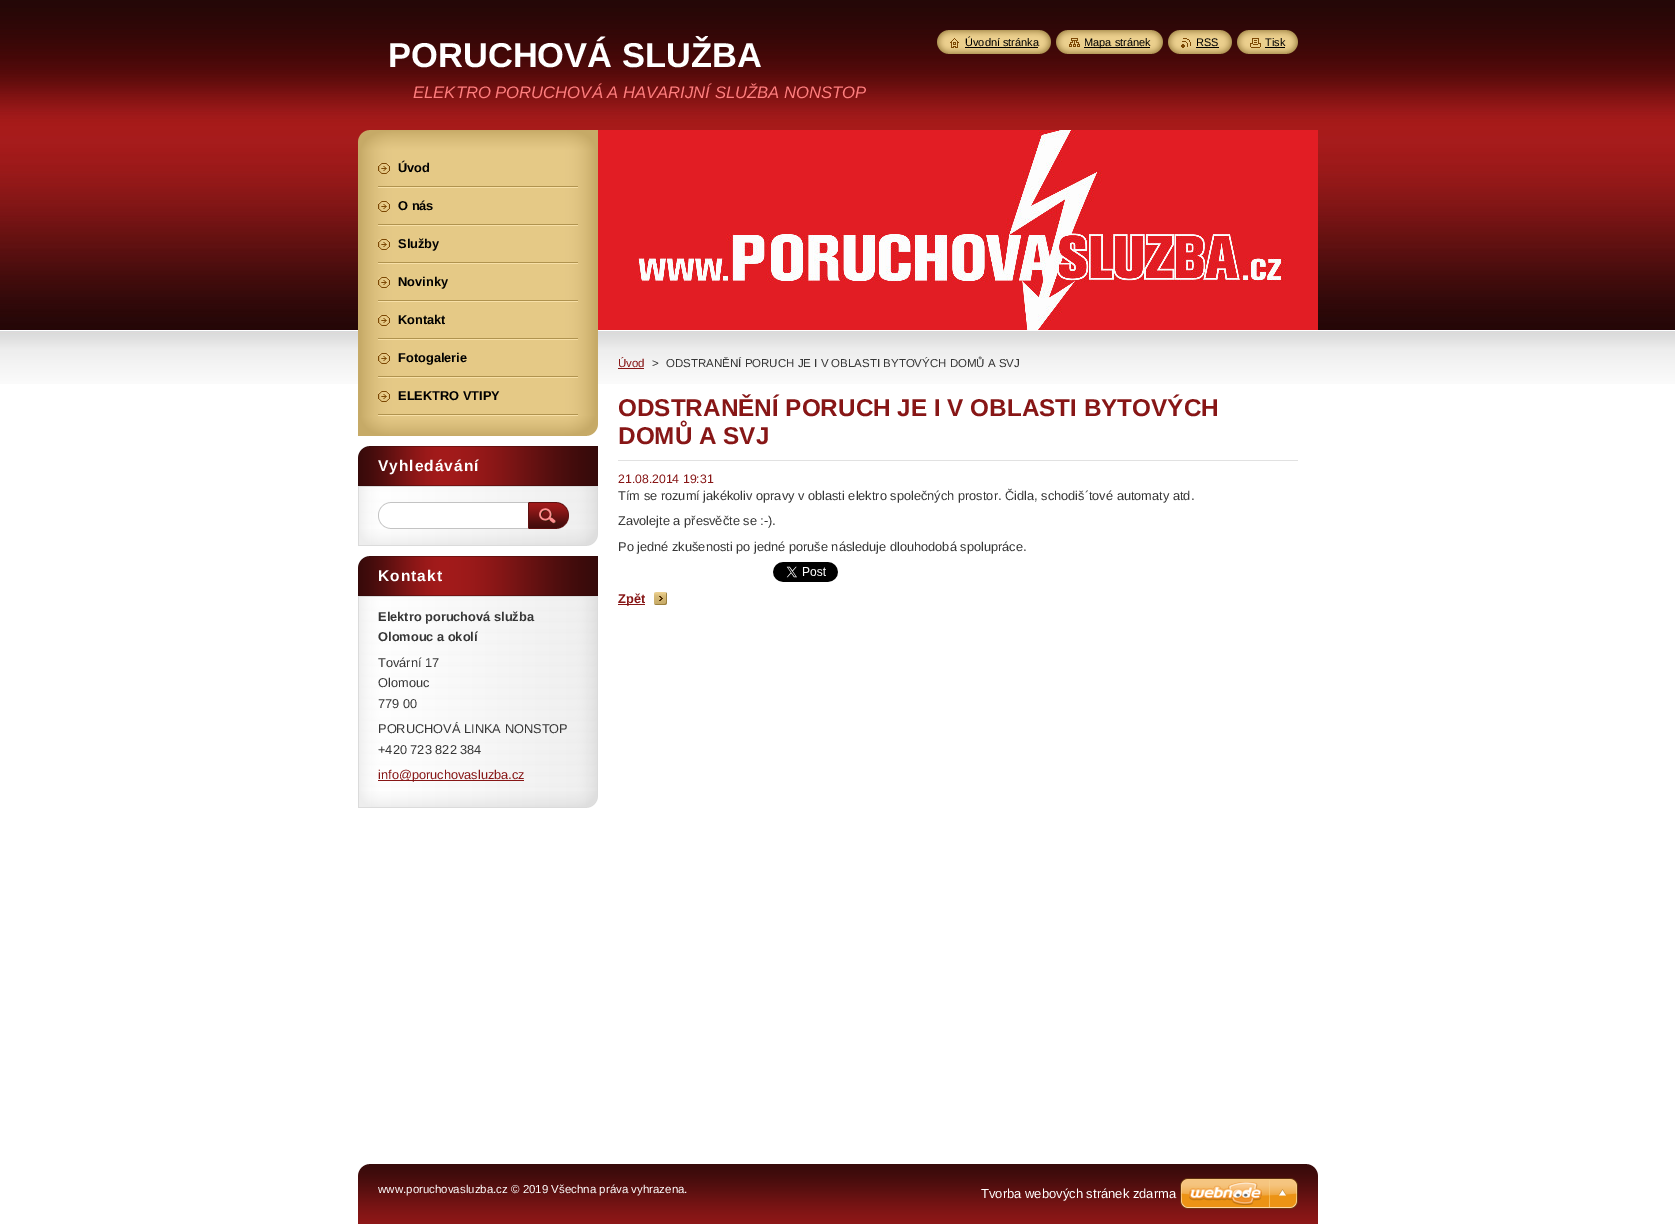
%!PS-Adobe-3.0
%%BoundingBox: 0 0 1675 1224
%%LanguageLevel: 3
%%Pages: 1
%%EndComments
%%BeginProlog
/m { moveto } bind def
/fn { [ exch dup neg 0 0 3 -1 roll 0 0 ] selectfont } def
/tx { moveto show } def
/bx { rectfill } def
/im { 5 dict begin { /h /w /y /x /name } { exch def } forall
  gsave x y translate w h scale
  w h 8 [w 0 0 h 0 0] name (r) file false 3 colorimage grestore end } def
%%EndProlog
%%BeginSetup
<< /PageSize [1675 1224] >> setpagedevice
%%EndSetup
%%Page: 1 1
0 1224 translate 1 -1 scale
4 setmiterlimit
1 setgray
0 0 1675 1224 bx
(image0.raw) 0 0 1675 384 im
/LiberationSans-Bold 34.5 fn
(PORUCHOVÁ SLUŽBA) 388 67 tx
/LiberationSans-Italic 16.65 fn
1 0.494 0.494 setrgbcolor
(ELEKTRO PORUCHOVÁ A HAVARIJNÍ SLUŽBA NONSTOP) 413 98 tx
(image1.raw) 937 30 13 24 im
(image2.raw) 950 30 101 24 im
(image3.raw) 950 38 9 10 im
/LiberationSans-Regular 11 fn
0 setgray
(Úvodní stránka) 965 46 tx
965 47 73 1 bx
(image1.raw) 1056 30 13 24 im
(image4.raw) 1069 30 94 24 im
(image5.raw) 1069 38 11 9 im
1084 47 66 1 bx
(Mapa stránek) 1084 46 tx
(image1.raw) 1168 30 13 24 im
(image6.raw) 1181 30 51 24 im
(image7.raw) 1181 38 10 10 im
(RSS) 1196 46 tx
1196 47 23 1 bx
(image1.raw) 1237 30 13 24 im
(image8.raw) 1250 30 48 24 im
(image9.raw) 1250 38 11 10 im
(Tisk) 1265 46 tx
1265 47 20 1 bx
(image10.raw) 358 130 240 20 im
(image11.raw) 358 416 240 20 im
(image12.raw) 358 150 240 266 im
(image13.raw) 378 186 200 2 im
(image14.raw) 378 163 12 11 im
/LiberationSans-Bold 12.8 fn
(Úvod) 398 172 tx
(image13.raw) 378 224 200 2 im
(image14.raw) 378 201 12 11 im
(O nás) 398 210 tx
(image13.raw) 378 262 200 2 im
(image14.raw) 378 239 12 11 im
(Služby) 398 248 tx
(image13.raw) 378 300 200 2 im
(image14.raw) 378 277 12 11 im
(Novinky) 398 286 tx
(image13.raw) 378 338 200 2 im
(image14.raw) 378 315 12 11 im
(Kontakt) 398 324 tx
(image13.raw) 378 376 200 2 im
(image14.raw) 378 353 12 11 im
(Fotogalerie) 398 362 tx
(image13.raw) 378 414 200 2 im
(image14.raw) 378 391 12 11 im
(ELEKTRO VTIPY) 398 400 tx
(image15.raw) 358 529 240 17 im
(image16.raw) 358 446 240 40 im
/LiberationSans-Bold 15.5 fn
1 setgray
378 471 m 1 0 (Vyhledávání) ashow
(image17.raw) 358 487 240 42 im
0.859 setgray
358 486 240 1 bx
(image18.raw) 378 502 150 27 im
(image19.raw) 528 502 41 27 im
(image15.raw) 358 791 240 17 im
(image16.raw) 358 556 240 40 im
1 setgray
378 581 m 1 0 (Kontakt) ashow
(image20.raw) 358 597 240 194 im
0.859 setgray
358 596 240 1 bx
/LiberationSans-Bold 12.8 fn
0.212 setgray
(Elektro poruchová služba) 378 621 tx
(Olomouc a okolí) 378 641 tx
/LiberationSans-Regular 12.8 fn
(Tovární 17) 378 667 tx
(Olomouc) 378 687 tx
(779 00) 378 708 tx
(PORUCHOVÁ LINKA NONSTOP) 378 733 tx
(+420 723 822 384) 378 754 tx
0.529 0.086 0.086 setrgbcolor
378 780 146 1 bx
(info@poruchovasluzba.cz) 378 779 tx
(image21.raw) 598 130 720 200 im
/LiberationSans-Regular 11.5 fn
(Úvod) 618 367 tx
618 368 26 1 bx
0.212 setgray
(>) 652 367 tx
(ODSTRANĚNÍ PORUCH JE I V OBLASTI BYTOVÝCH DOMŮ A SVJ) 666 367 tx
0.882 setgray
618 460 680 1 bx
/LiberationSans-Bold 24.3 fn
0.529 0.086 0.086 setrgbcolor
(ODSTRANĚNÍ PORUCH JE I V OBLASTI BYTOVÝCH) 618 416 tx
(DOMŮ A SVJ) 618 444 tx
/LiberationSans-Regular 12.25 fn
(21.08.2014 19:31) 618 483 tx
/LiberationSans-Regular 12.8 fn
0.212 setgray
(Tím se rozumí jakékoliv opravy v oblasti elektro společných prostor. Čidla, schodiš´tové automaty atd.) 618 500 tx
(Zavolejte a přesvěčte se :-\).) 618 525 tx
(Po jedné zkušenosti po jedné poruše následuje dlouhodobá spolupráce.) 618 551 tx
(image22.raw) 773 562 65 20 im
(image23.raw) 654 592 13 13 im
0.529 0.086 0.086 setrgbcolor
618 604 27 1 bx
/LiberationSans-Bold 12.8 fn
(Zpět) 618 603 tx
(image24.raw) 358 1164 960 60 im
/LiberationSans-Regular 11.5 fn
1 setgray
(www.poruchovasluzba.cz © 2019 Všechna práva vyhrazena.) 378 1193 tx
/LiberationSans-Regular 13 fn
(Tvorba webových stránek zdarma) 981 1198 tx
(image25.raw) 1180 1178 118 31 im
showpage
%%EOF
